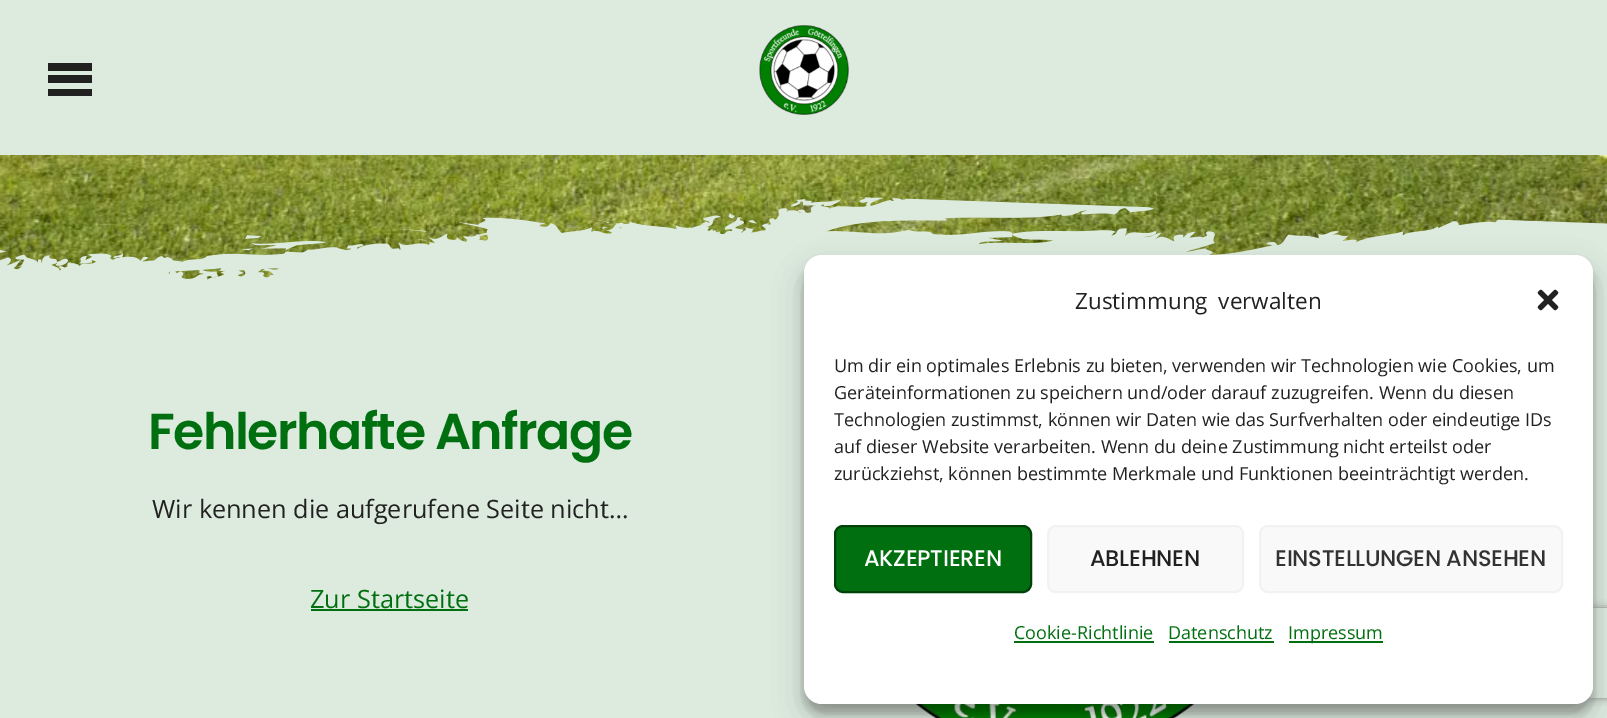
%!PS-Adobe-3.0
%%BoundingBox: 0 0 1607 718
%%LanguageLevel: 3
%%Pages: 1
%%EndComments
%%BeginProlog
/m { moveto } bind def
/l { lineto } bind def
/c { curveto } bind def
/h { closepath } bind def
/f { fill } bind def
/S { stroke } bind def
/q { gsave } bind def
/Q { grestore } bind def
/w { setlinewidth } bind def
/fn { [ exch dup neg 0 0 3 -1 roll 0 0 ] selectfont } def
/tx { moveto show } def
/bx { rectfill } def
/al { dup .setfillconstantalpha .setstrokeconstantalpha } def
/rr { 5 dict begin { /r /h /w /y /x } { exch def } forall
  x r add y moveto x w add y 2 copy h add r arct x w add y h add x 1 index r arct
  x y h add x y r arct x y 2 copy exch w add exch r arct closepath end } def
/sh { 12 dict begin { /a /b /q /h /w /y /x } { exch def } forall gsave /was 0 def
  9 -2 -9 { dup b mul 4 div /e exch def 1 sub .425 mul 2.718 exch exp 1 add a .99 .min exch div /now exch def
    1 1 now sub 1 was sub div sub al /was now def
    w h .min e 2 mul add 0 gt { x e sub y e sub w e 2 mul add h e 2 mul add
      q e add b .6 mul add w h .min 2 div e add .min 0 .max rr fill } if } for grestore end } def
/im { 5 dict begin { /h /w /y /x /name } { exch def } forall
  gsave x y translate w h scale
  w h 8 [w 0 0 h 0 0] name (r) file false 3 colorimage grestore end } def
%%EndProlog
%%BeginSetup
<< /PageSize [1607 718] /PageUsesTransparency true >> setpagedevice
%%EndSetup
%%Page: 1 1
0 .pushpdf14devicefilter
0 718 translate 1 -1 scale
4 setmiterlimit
0.867 0.922 0.875 setrgbcolor
0 0 1607 718 bx
0.129 setgray
48 89 44 7 bx
48 63 44 8 bx
48 75 44 8 bx
(image0.raw) 759 25 90 90 im
(image1.raw) 0 155 1607 126 im
(image2.raw) 0 197 1607 109 im
/Poppins-SemiBold 50.5 fn
0 0.435 0.063 setrgbcolor
148 449 m -1.5 0 (Fehlerhafte Anfrage) ashow
/OpenSans-Regular 25.25 fn
0.129 setgray
(Wir kennen die aufgerufene Seite nicht…) 152 518 tx
0 0.435 0.063 setrgbcolor
(Zur Startseite) 310 608 tx
311 609 157 2 bx
(image3.raw) 915 704 280 14 im
0 setgray
804 264 789 449 18 4.5 0.23 sh
804 270 789 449 18 15 0.19 sh
q
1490 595 m 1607 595 l 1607 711 l 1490 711 l h 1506 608 m 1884 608 l 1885.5 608 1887 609.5 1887 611 c 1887 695 l 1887 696.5 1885.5 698 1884 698 c 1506 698 l 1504.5 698 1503 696.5 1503 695 c 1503 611 l 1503 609.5 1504.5 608 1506 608 c h eoclip newpath
0.502 setgray
1503 608 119 90 3 4 1 sh
Q
1 setgray
804 255 789 449 18 rr f
/OpenSans-Regular 22.5 fn
0.129 setgray
1075 309 m 5 0 32 (Zustimmung verwalten) widthshow
(image4.raw) 1537 289 22 22 im
/OpenSans-Regular 18 fn
(Um dir ein optimales Erlebnis zu bieten, verwenden wir Technologien wie Cookies, um) 834 372 tx
(Geräteinformationen zu speichern und/oder darauf zuzugreifen. Wenn du diesen) 834 399 tx
(Technologien zustimmst, können wir Daten wie das Surfverhalten oder eindeutige IDs) 834 426 tx
(auf dieser Website verarbeiten. Wenn du deine Zustimmung nicht erteilst oder) 834 453 tx
(zurückziehst, können bestimmte Merkmale und Funktionen beeinträchtigt werden.) 834 480 tx
0 0.435 0.063 setrgbcolor
835 526 196 66 8 rr q f Q
0 0.255 0.039 setrgbcolor
2 w
S
/Poppins-Medium 22.5 fn
1 setgray
864 566 m -0.25 0 (AKZEPTIEREN) ashow
0.976 setgray
1048 526 195 66 8 rr q f Q
0.949 setgray
S
0.129 setgray
1090 566 m -0.25 0 (ABLEHNEN) ashow
0.976 setgray
1260 526 302 66 8 rr q f Q
0.949 setgray
S
0.2 setgray
1275 566 m -0.25 0 (EINSTELLUNGEN ANSEHEN) ashow
/OpenSans-Regular 18 fn
0 0.435 0.063 setrgbcolor
(Cookie-Richtlinie) 1014 639 tx
1014 641 140 2 bx
(Datenschutz) 1168 639 tx
1169 641 105 2 bx
1289 641 94 2 bx
(Impressum) 1288 639 tx
.poppdf14devicefilter showpage
%%EOF
